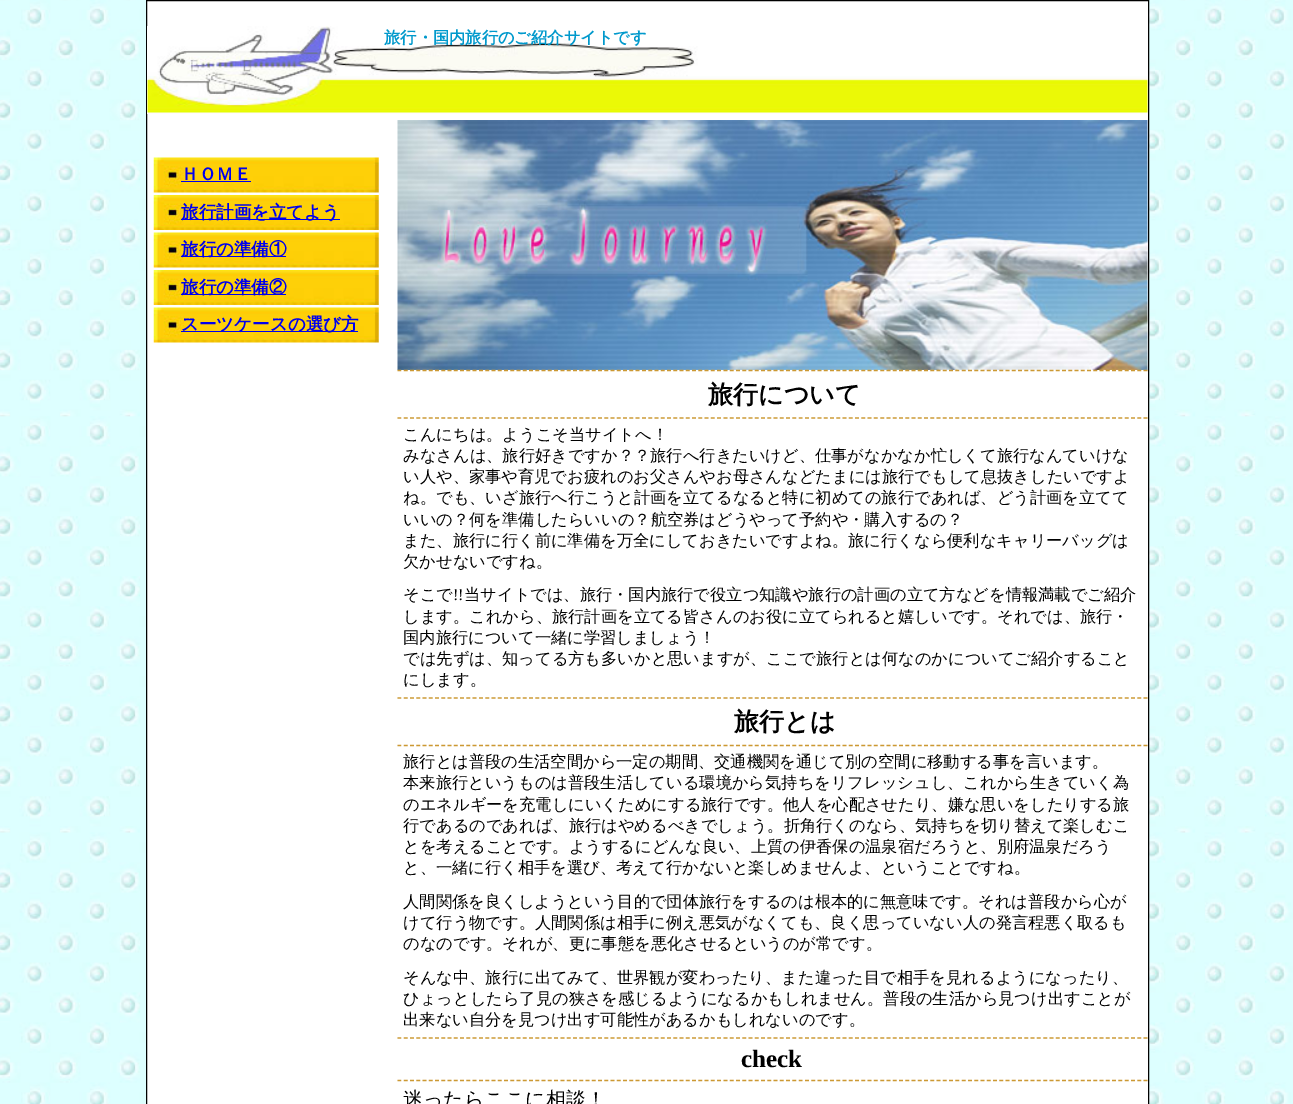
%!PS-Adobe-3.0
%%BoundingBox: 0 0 1293 1104
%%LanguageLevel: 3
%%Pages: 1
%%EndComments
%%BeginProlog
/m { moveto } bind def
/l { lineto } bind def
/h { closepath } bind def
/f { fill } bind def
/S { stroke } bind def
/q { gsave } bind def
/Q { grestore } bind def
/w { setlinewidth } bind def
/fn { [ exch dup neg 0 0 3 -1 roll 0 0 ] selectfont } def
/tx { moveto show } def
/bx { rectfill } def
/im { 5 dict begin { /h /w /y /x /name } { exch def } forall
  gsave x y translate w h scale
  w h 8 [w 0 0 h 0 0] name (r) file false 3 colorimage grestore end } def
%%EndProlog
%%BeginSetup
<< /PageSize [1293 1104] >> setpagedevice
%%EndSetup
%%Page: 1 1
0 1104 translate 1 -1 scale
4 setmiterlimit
1 setgray
0 0 1293 1104 bx
(image0.raw) 0 0 1293 1104 im
146.5 0.5 m 1148.5 0.5 l 1148.5 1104.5 l 146.5 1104.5 l h q f Q
0 setgray
S
(image1.raw) 147 26 1001 88 im
/WenQuanYiZenHei-Bold 16.25 fn
0 0.6 0.8 setrgbcolor
(旅行・国内旅行のご紹介サイトです) 384 43 tx
(image2.raw) 153 157 226 36 im
/WenQuanYiZenHei-Bold 17.5 fn
0 0 0.933 setrgbcolor
(ＨＯＭＥ) 181 180 tx
181 181 70 1 bx
(image3.raw) 153 195 226 35 im
181 219 159 1 bx
(旅行計画を立てよう) 181 218 tx
(image2.raw) 153 232 226 36 im
181 256 105 1 bx
(旅行の準備①) 181 255 tx
(image3.raw) 153 270 226 35 im
181 294 105 1 bx
(旅行の準備②) 181 293 tx
(image2.raw) 153 307 226 36 im
181 331 177 1 bx
(スーツケースの選び方) 181 330 tx
(image4.raw) 397 120 751 250 im
0.8 0.6 0.2 setrgbcolor
1.2 w
[3.75 2.52] 0 setdash
397.5 370.5 m 1147.5 370.5 l S
397.5 418 m 1147.5 418 l S
/WenQuanYiZenHei-Bold 25 fn
0 setgray
(旅行について) 708 403 tx
/WenQuanYiZenHei-Medium 16.25 fn
(こんにちは。ようこそ当サイトへ！) 403 440 tx
(みなさんは、旅行好きですか？？旅行へ行きたいけど、仕事がなかなか忙しくて旅行なんていけな) 403 461 tx
(い人や、家事や育児でお疲れのお父さんやお母さんなどたまには旅行でもして息抜きしたいですよ) 403 482 tx
(ね。でも、いざ旅行へ行こうと計画を立てるなると特に初めての旅行であれば、どう計画を立てて) 403 503 tx
(いいの？何を準備したらいいの？航空券はどうやって予約や・購入するの？) 403 525 tx
(また、旅行に行く前に準備を万全にしておきたいですよね。旅に行くなら便利なキャリーバッグは) 403 546 tx
(欠かせないですね。) 403 567 tx
(そこで) 403 600 tx
/LiberationSerif-Regular 16.25 fn
(!!) 453 600 tx
/WenQuanYiZenHei-Medium 16.25 fn
(当サイトでは、旅行・国内旅行で役立つ知識や旅行の計画の立て方などを情報満載でご紹介) 464 600 tx
(します。これから、旅行計画を立てる皆さんのお役に立てられると嬉しいです。それでは、旅行・) 403 622 tx
(国内旅行について一緒に学習しましょう！) 403 643 tx
(では先ずは、知ってる方も多いかと思いますが、ここで旅行とは何なのかについてご紹介すること) 403 664 tx
(にします。) 403 685 tx
0.8 0.6 0.2 setrgbcolor
397.5 698 m 1147.5 698 l S
397.5 745.5 m 1147.5 745.5 l S
/WenQuanYiZenHei-Bold 25 fn
0 setgray
(旅行とは) 734 730 tx
/WenQuanYiZenHei-Medium 16.25 fn
(旅行とは普段の生活空間から一定の期間、交通機関を通じて別の空間に移動する事を言います。) 403 767 tx
(本来旅行というものは普段生活している環境から気持ちをリフレッシュし、これから生きていく為) 403 788 tx
(のエネルギーを充電しにいくためにする旅行です。他人を心配させたり、嫌な思いをしたりする旅) 403 810 tx
(行であるのであれば、旅行はやめるべきでしょう。折角行くのなら、気持ちを切り替えて楽しむこ) 403 831 tx
(とを考えることです。ようするにどんな良い、上質の伊香保の温泉宿だろうと、別府温泉だろう) 403 852 tx
(と、一緒に行く相手を選び、考えて行かないと楽しめませんよ、ということですね。) 403 873 tx
(人間関係を良くしようという目的で団体旅行をするのは根本的に無意味です。それは普段から心が) 403 907 tx
(けて行う物です。人間関係は相手に例え悪気がなくても、良く思っていない人の発言程悪く取るも) 403 928 tx
(のなのです。それが、更に事態を悪化させるというのが常です。) 403 949 tx
(そんな中、旅行に出てみて、世界観が変わったり、また違った目で相手を見れるようになったり、) 403 983 tx
(ひょっとしたら了見の狭さを感じるようになるかもしれません。普段の生活から見つけ出すことが) 403 1004 tx
(出来ない自分を見つけ出す可能性があるかもしれないのです。) 403 1025 tx
0.8 0.6 0.2 setrgbcolor
397.5 1038 m 1147.5 1038 l S
397.5 1080.5 m 1147.5 1080.5 l S
/LiberationSerif-Bold 25 fn
0 setgray
(check) 741 1067 tx
/WenQuanYiZenHei-Medium 20 fn
(迷ったらここに相談！) 403 1106 tx
showpage
%%EOF
